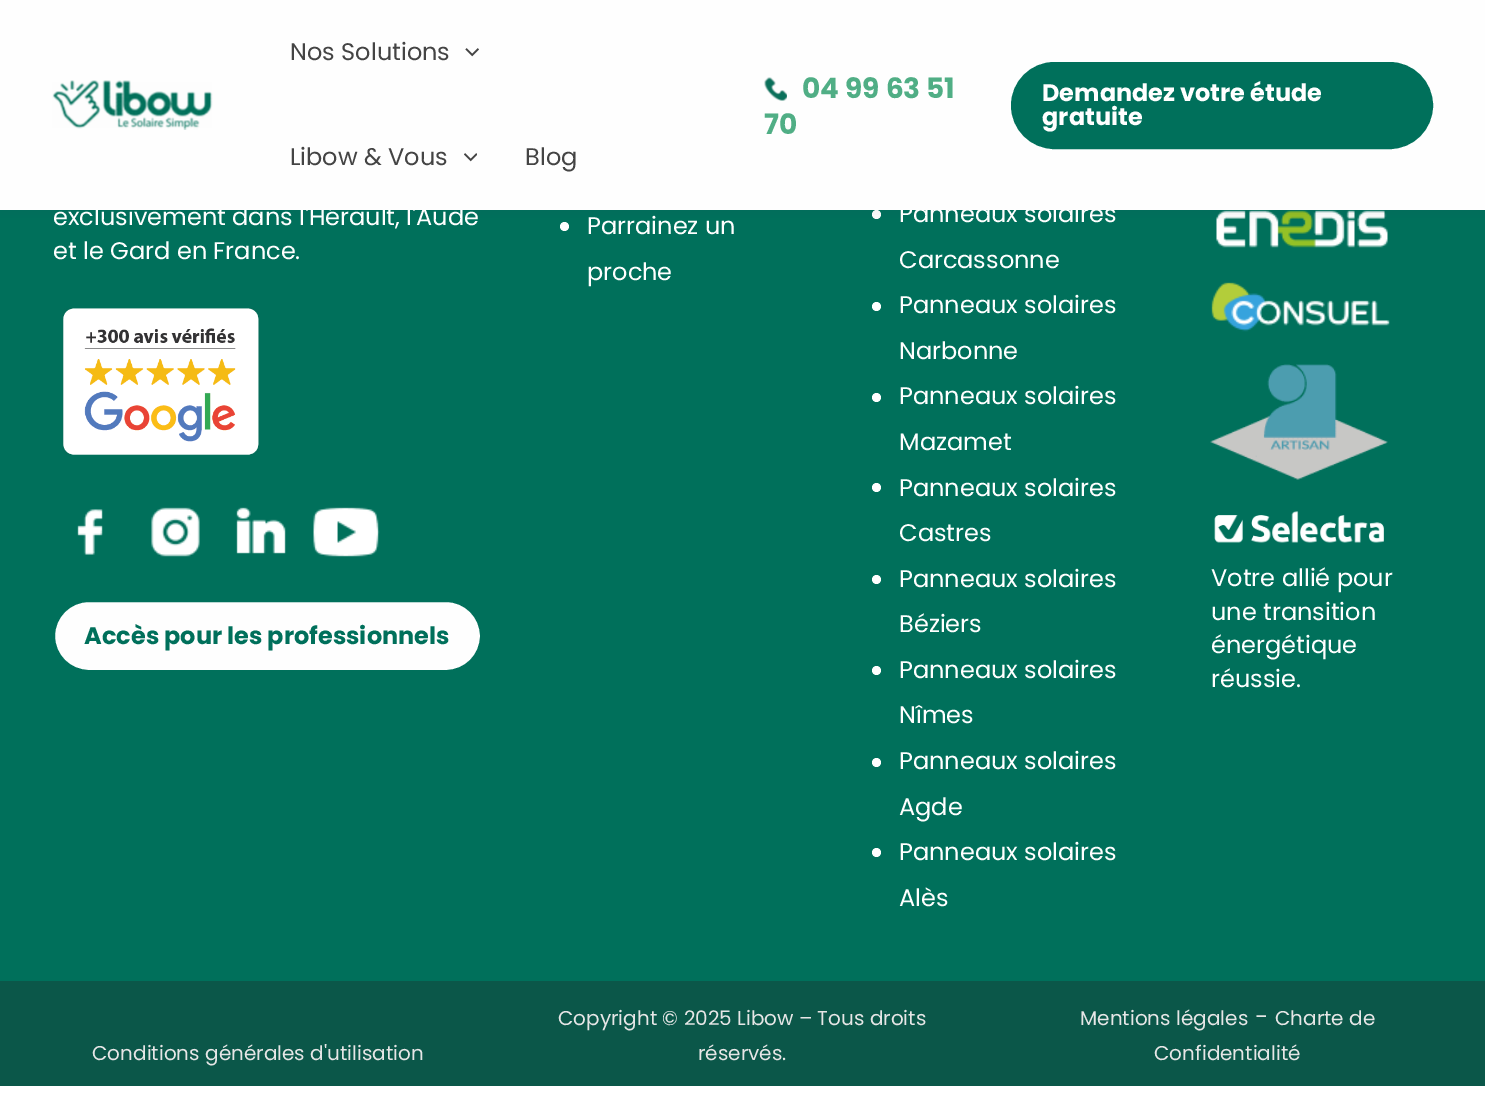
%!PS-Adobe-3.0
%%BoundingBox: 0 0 1485 1118
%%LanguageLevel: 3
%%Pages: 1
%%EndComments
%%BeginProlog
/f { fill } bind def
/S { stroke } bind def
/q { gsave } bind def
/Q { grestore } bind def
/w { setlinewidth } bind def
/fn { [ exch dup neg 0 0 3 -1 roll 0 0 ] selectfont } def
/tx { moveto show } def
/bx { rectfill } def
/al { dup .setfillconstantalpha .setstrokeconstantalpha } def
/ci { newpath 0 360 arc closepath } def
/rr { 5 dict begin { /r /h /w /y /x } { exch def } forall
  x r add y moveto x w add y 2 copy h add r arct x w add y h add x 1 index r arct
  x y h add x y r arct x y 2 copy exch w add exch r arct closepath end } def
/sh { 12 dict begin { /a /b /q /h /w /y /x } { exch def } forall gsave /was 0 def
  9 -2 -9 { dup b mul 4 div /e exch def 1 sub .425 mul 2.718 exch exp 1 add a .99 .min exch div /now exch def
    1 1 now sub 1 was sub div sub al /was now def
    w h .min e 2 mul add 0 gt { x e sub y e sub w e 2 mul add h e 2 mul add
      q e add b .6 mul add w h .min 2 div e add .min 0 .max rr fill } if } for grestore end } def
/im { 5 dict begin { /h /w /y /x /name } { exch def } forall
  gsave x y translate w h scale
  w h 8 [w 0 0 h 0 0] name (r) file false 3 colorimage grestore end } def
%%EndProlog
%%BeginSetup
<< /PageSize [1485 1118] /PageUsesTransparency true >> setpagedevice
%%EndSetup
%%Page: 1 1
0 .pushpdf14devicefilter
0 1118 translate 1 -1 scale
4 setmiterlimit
1 setgray
0 0 1485 1118 bx
0 0.439 0.357 setrgbcolor
0 210 1485 771 bx
1 setgray
564.5 226.5 4.5 ci f
876.5 214.5 4.5 ci f
(image9.raw) 1216 210 172 38 im
0.141 0.196 0.259 setrgbcolor
0 3 1485 210 0 7.5 0.07 sh
/Poppins-Regular 24 fn
1 setgray
(exclusivement dans l'Hérault, l'Aude) 53 225 tx
(Panneaux solaires) 899 222 tx
0.996 setgray
0 0 1485 210 bx
(image0.raw) 52 80 161 50 im
0.267 setgray
(Nos Solutions) 290 60 tx
(image1.raw) 465 48 14 9 im
(Libow & Vous) 290 165 tx
(image2.raw) 464 153 13 9 im
(Blog) 525 165 tx
(image3.raw) 764 77 23 24 im
/Poppins-Bold 28 fn
0.314 0.682 0.522 setrgbcolor
(04 99 63 51) 802 98 tx
(70) 764 134 tx
0 0.439 0.357 setrgbcolor
1012 63 420 85 42.5 rr q f Q
2 w
S
/Poppins-Bold 24 fn
1 setgray
(Demandez votre étude) 1042 101 tx
(gratuite) 1042 125 tx
/Poppins-Regular 24 fn
(et le Gard en France.) 53 259 tx
(image4.raw) 62 308 198 147 im
(image5.raw) 77 509 26 46 im
(image6.raw) 151 507 49 50 im
(image7.raw) 236 507 50 47 im
(image8.raw) 313 507 67 50 im
0.996 setgray
54 601 427 70 35 rr q f Q
0 0.439 0.357 setrgbcolor
S
/Poppins-Bold 24 fn
(Accès pour les professionnels) 84 644 tx
/Poppins-Regular 24 fn
1 setgray
(Parrainez un) 587 234 tx
(proche) 587 280 tx
(Carcassonne) 899 268 tx
876.5 306.5 4.5 ci f
(Panneaux solaires) 899 313 tx
(Narbonne) 899 359 tx
876.5 397.5 4.5 ci f
(Panneaux solaires) 899 404 tx
(Mazamet) 899 450 tx
876.5 487.5 4.5 ci f
(Panneaux solaires) 899 496 tx
(Castres) 899 541 tx
876.5 579.5 4.5 ci f
(Panneaux solaires) 899 587 tx
(Béziers) 899 632 tx
876.5 670.5 4.5 ci f
(Panneaux solaires) 899 678 tx
(Nîmes) 899 723 tx
876.5 762.5 4.5 ci f
(Panneaux solaires) 899 769 tx
(Agde) 899 815 tx
876.5 852.5 4.5 ci f
(Panneaux solaires) 899 860 tx
(Alès) 899 906 tx
(image10.raw) 1211 282 179 50 im
(image11.raw) 1210 364 178 116 im
(image12.raw) 1214 511 170 32 im
(Votre allié pour) 1211 586 tx
(une transition) 1211 620 tx
(énergétique) 1211 653 tx
(réussie.) 1211 687 tx
0.043 0.341 0.286 setrgbcolor
0 981 1485 105 bx
/Poppins-Regular 20 fn
0.902 setgray
(Conditions générales d'utilisation) 92 1060 tx
(Copyright © 2025 Libow – Tous droits) 558 1025 tx
(réservés.) 698 1060 tx
(Mentions légales) 1080 1025 tx
/Poppins-Regular 24 fn
(-) 1255 1025 tx
/Poppins-Regular 20 fn
(Charte de) 1275 1025 tx
(Confidentialité) 1154 1060 tx
.poppdf14devicefilter showpage
%%EOF
